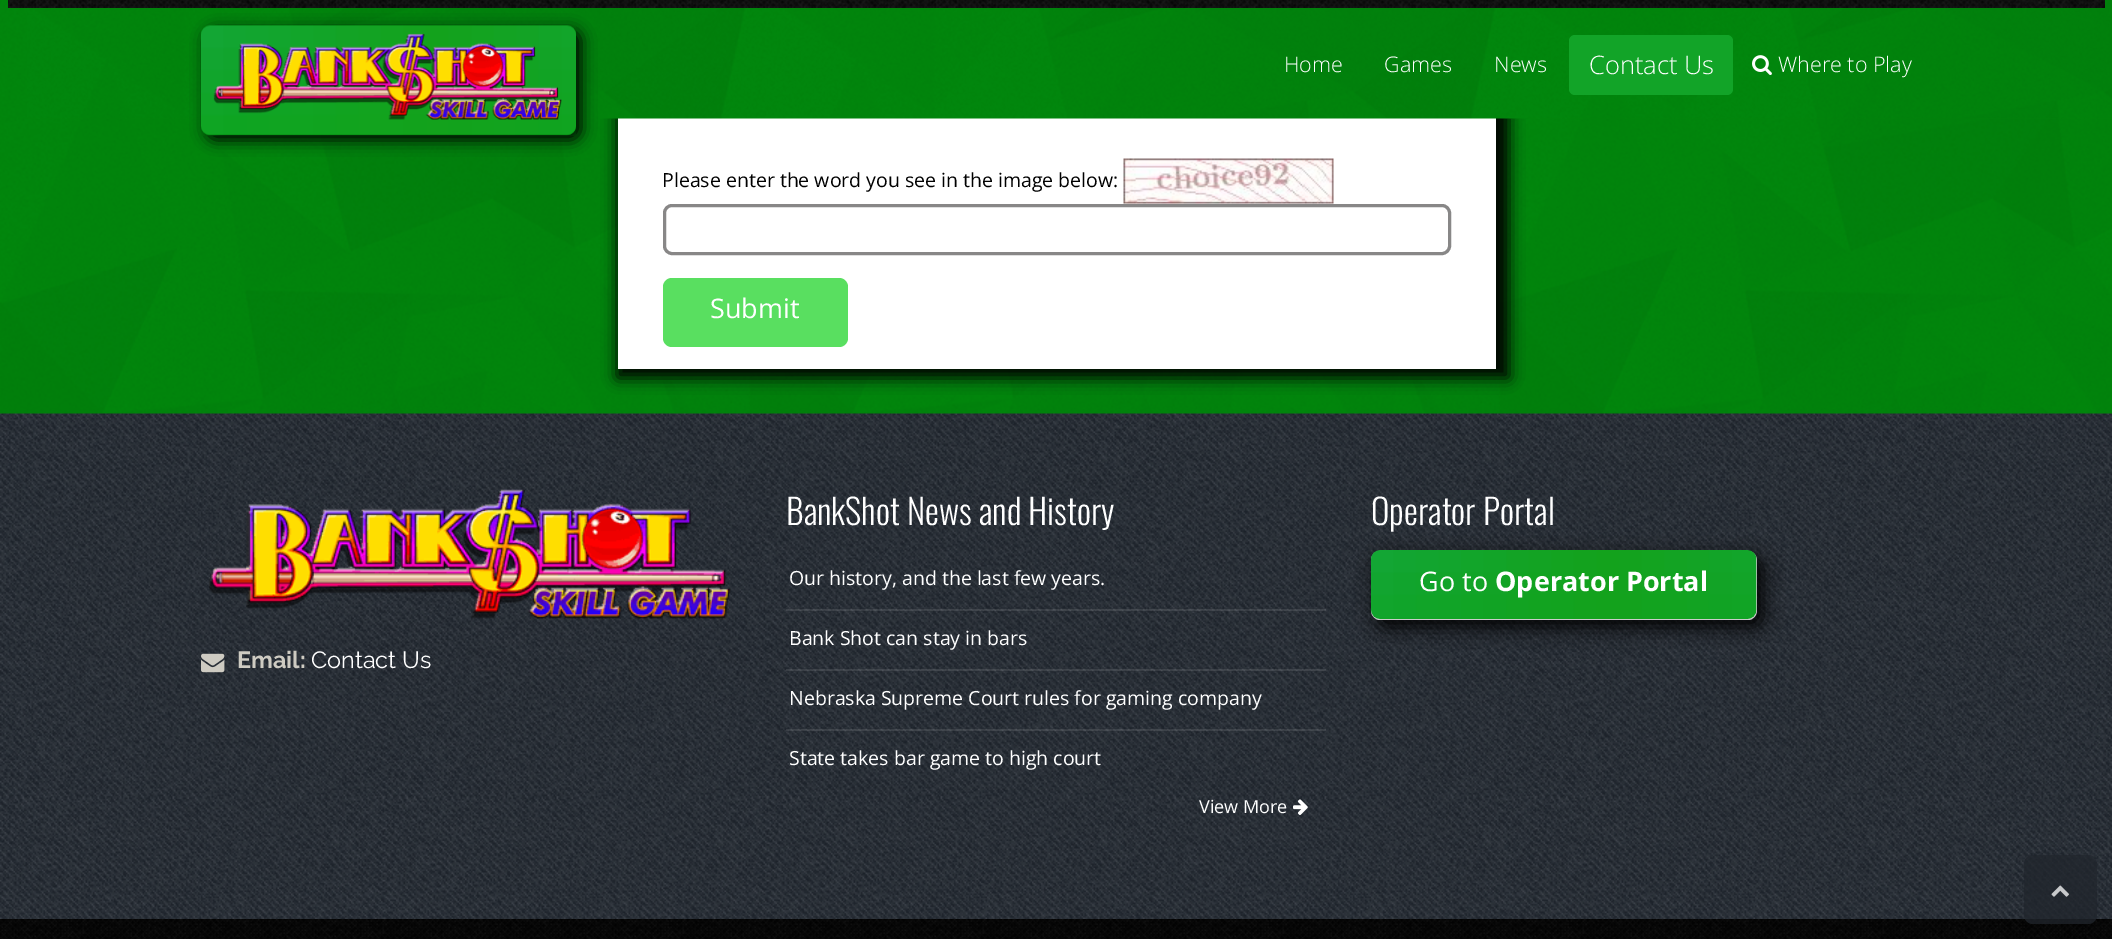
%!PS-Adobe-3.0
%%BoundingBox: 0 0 2112 939
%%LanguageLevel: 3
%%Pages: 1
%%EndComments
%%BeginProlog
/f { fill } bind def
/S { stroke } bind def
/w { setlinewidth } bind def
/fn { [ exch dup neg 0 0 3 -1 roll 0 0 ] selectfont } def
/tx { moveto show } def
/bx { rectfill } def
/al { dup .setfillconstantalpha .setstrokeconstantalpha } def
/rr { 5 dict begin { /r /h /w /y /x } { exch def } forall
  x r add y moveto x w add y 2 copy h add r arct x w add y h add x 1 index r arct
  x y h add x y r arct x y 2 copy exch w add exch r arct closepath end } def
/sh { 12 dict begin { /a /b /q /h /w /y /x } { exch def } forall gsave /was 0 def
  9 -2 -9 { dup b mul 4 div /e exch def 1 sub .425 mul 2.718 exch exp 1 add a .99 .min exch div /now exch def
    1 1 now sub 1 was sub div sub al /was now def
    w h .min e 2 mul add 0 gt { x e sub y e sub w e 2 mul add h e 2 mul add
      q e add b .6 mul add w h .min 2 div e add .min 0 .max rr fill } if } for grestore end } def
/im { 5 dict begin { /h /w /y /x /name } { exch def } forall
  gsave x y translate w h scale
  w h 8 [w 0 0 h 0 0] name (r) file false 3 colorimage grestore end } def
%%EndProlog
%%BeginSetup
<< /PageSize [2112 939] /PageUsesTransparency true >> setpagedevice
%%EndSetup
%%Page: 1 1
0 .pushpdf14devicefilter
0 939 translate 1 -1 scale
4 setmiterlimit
1 setgray
0 0 2112 939 bx
(image0.raw) 0 413 2112 1 im
(image6.raw) 0 0 2112 413 im
0 setgray
617 -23 892 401 0 7.5 1 sh
1 setgray
618 118 878 251 bx
(image1.raw) 27 0 2085 119 im
(image2.raw) 8 0 2097 8 im
0 setgray
206 30 375 110 9 7.5 1 sh
(image3.raw) 201 25 375 111 im
(image4.raw) 213 33 349 87 im
/OpenSans-Light 21.5 fn
1 setgray
(Home) 1284 72 tx
(Games) 1384 72 tx
(News) 1494 72 tx
0.071 0.643 0.157 setrgbcolor
1569 35 164 60 6 rr f
/OpenSans-Light 25.5 fn
1 setgray
(Contact Us) 1589 74 tx
(image5.raw) 1752 55 20 20 im
/OpenSans-Light 21.5 fn
(Where to Play) 1778 72 tx
/OpenSans-Regular 19.5 fn
0 setgray
(Please enter the word you see in the image below:) 662 187 tx
(image7.raw) 1123 158 211 46 im
0.533 0.529 0.529 setrgbcolor
3 w
664.5 205.5 785 48 7.5 rr S
0.349 0.875 0.376 setrgbcolor
663 278 185 69 9 rr f
/OpenSans-Regular 27 fn
1 setgray
(Submit) 710 318 tx
(image8.raw) 0 413 2112 506 im
/Oswald-Light 35 fn
(BankShot News and History) 786 525 tx
0.1 al
786 609 540 2 bx
/OpenSans-Regular 19.5 fn
1 al
(Our history, and the last few years.) 789 585 tx
0.1 al
786 669 540 2 bx
1 al
(Bank Shot can stay in bars) 789 645 tx
0.1 al
786 729 540 2 bx
1 al
(Nebraska Supreme Court rules for gaming company) 789 705 tx
(State takes bar game to high court) 789 765 tx
/OpenSans-Regular 18 fn
(View More) 1199 813 tx
(image9.raw) 1293 799 15 16 im
/Oswald-Light 35 fn
(Operator Portal) 1371 525 tx
0 setgray
1377 558 386 69 9 10 1 sh
0.8 setgray
1371 551 386 69 9 rr f
(image10.raw) 1371 550 386 69 im
/OpenSans-Regular 27 fn
1 setgray
(Go to) 1419 591 tx
/OpenSans-Bold 27 fn
(Operator Portal) 1495 591 tx
(image11.raw) 209 489 522 130 im
(image12.raw) 201 653 24 20 im
/Raleway-Bold 23.5 fn
0.808 0.796 0.761 setrgbcolor
(Email:) 237 668 tx
/Raleway-Regular 23.5 fn
1 setgray
(Contact Us) 311 668 tx
(image13.raw) 0 919 2112 20 im
0.75 al
0.125 0.145 0.173 setrgbcolor
2024 855 73 69 9 rr f
1 al
(image14.raw) 2051 885 18 12 im
.poppdf14devicefilter showpage
%%EOF
